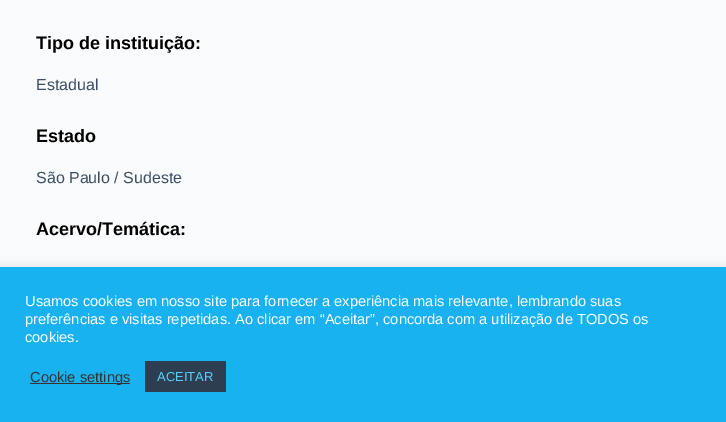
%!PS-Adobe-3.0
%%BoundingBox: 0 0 726 422
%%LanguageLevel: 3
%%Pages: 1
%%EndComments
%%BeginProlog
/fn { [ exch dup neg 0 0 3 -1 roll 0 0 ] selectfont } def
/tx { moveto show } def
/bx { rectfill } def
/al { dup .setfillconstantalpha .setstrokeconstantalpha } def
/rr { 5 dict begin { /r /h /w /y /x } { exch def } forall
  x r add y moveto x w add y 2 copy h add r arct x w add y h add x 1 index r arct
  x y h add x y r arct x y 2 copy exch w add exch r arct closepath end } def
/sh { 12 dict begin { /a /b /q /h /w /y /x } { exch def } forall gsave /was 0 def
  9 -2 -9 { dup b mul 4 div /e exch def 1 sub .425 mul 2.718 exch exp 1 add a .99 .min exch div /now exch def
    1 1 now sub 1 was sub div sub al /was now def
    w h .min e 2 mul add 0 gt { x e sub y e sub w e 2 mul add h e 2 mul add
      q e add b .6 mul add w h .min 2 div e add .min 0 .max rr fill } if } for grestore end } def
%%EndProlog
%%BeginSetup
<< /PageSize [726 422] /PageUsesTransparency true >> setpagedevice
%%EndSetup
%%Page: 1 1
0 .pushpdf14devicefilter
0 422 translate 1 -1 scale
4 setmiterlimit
0.98 0.984 0.988 setrgbcolor
0 0 726 422 bx
/LiberationSans-Bold 18 fn
0 setgray
(Tipo de instituição:) 36 49 tx
/LiberationSans-Regular 16 fn
0.227 0.31 0.4 setrgbcolor
(Estadual) 36 90 tx
/LiberationSans-Bold 18 fn
0 setgray
(Estado) 36 142 tx
/LiberationSans-Regular 16 fn
0.227 0.31 0.4 setrgbcolor
(São Paulo / Sudeste) 36 183 tx
/LiberationSans-Bold 18 fn
0 setgray
(Acervo/Temática:) 36 235 tx
0.675 0.671 0.671 setrgbcolor
0 266 726 155 0 5 0.3 sh
0.09 0.698 0.937 setrgbcolor
0 267 726 155 bx
/LiberationSans-Regular 14.65 fn
1 setgray
(Usamos cookies em nosso site para fornecer a experiência mais relevante, lembrando suas) 25 306 tx
(preferências e visitas repetidas. Ao clicar em “Aceitar”, concorda com a utilização de TODOS os) 25 324 tx
(cookies.) 25 342 tx
0.2 setgray
30 383 100 1 bx
(Cookie settings) 30 382 tx
0.173 0.243 0.314 setrgbcolor
145 361 81 31 bx
/LiberationSans-Regular 13 fn
0.337 0.808 0.988 setrgbcolor
(ACEITAR) 157 381 tx
.poppdf14devicefilter showpage
%%EOF
